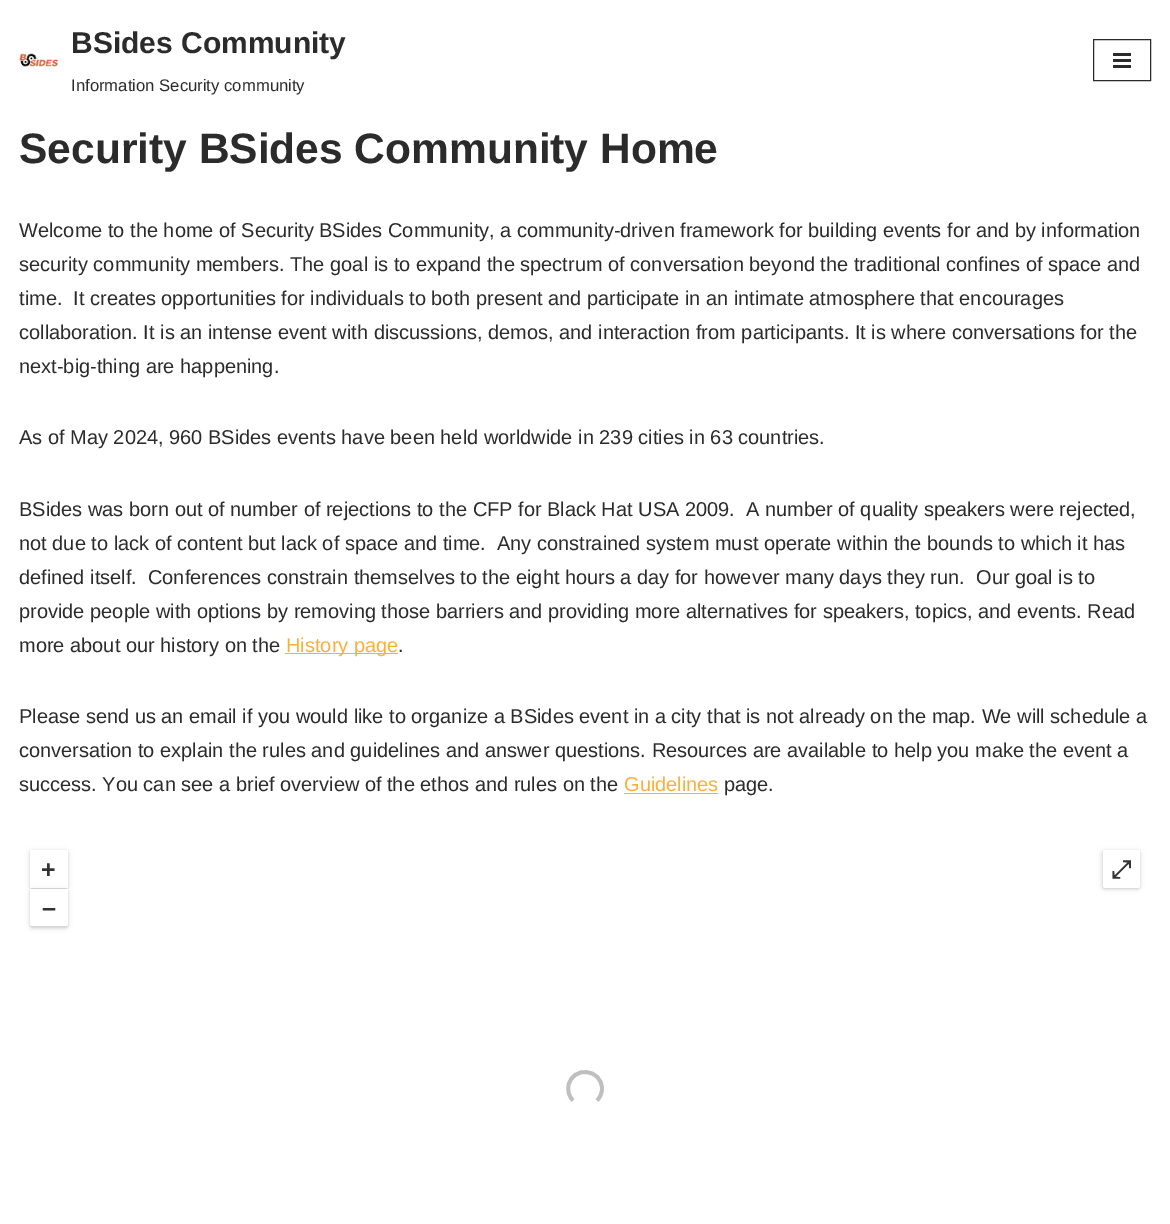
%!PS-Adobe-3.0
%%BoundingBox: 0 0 1170 1224
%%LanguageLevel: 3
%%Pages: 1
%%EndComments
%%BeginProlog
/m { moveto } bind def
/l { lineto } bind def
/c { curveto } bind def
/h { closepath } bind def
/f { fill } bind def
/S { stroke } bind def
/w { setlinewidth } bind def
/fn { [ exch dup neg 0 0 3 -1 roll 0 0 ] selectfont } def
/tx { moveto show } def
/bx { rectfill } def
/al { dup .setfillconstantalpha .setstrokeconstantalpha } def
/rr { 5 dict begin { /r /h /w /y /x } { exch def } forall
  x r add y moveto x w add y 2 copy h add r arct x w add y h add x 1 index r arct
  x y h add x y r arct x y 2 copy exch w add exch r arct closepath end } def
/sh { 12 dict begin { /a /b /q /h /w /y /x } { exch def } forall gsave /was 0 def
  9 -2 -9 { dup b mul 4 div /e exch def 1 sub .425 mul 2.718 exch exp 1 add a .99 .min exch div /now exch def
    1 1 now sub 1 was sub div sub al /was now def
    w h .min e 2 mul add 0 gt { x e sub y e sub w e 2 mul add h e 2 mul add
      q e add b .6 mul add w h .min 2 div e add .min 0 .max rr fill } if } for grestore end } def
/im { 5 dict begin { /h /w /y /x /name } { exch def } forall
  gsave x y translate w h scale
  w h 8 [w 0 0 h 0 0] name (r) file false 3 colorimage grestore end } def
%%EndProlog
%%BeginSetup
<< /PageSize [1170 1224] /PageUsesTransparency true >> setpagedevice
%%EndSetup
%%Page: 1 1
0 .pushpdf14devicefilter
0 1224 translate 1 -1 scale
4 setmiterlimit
1 setgray
0 0 1170 1224 bx
(image0.raw) 19 53 39 14 im
/LiberationSans-Bold 30 fn
0.169 setgray
(BSides Community) 71 53 tx
/LiberationSans-Regular 16.7 fn
(Information Security community) 71 91 tx
1093.5 39.5 57 41 rectstroke
1113 53 18 3 bx
1113 59 18 3 bx
1113 65 18 3 bx
/LiberationSans-Bold 42.5 fn
(Security BSides Community Home) 19 163 tx
/LiberationSans-Regular 20 fn
(Welcome to the home of Security BSides Community, a community-driven framework for building events for and by information) 19 237 tx
(security community members. The goal is to expand the spectrum of conversation beyond the traditional confines of space and) 19 271 tx
(time.  It creates opportunities for individuals to both present and participate in an intimate atmosphere that encourages) 19 305 tx
(collaboration. It is an intense event with discussions, demos, and interaction from participants. It is where conversations for the) 19 339 tx
(next-big-thing are happening.) 19 373 tx
(As of May 2024, 960 BSides events have been held worldwide in 239 cities in 63 countries.) 19 444 tx
(BSides was born out of number of rejections to the CFP for Black Hat USA 2009.  A number of quality speakers were rejected,) 19 516 tx
(not due to lack of content but lack of space and time.  Any constrained system must operate within the bounds to which it has) 19 550 tx
(defined itself.  Conferences constrain themselves to the eight hours a day for however many days they run.  Our goal is to) 19 584 tx
(provide people with options by removing those barriers and providing more alternatives for speakers, topics, and events. Read) 19 618 tx
(more about our history on the) 19 652 tx
0.988 0.686 0.231 setrgbcolor
285 653 113 1 bx
(History page) 286 652 tx
0.169 setgray
(.) 398 652 tx
(Please send us an email if you would like to organize a BSides event in a city that is not already on the map. We will schedule a) 19 723 tx
(conversation to explain the rules and guidelines and answer questions. Resources are available to help you make the event a) 19 757 tx
(success. You can see a brief overview of the ethos and rules on the) 19 791 tx
0.988 0.686 0.231 setrgbcolor
(Guidelines) 624 791 tx
624 793 94 1 bx
0.169 setgray
(page.) 724 791 tx
0.259 setgray
29 850 40 40 4 2 0.16 sh
30 851 38 38 2.5 0.5 0.08 sh
1 setgray
32.5 850 m 65.5 850 l 67 850 68 851 68 852.5 c 68 888 l 30 888 l 30 852.5 l 30 851 31 850 32.5 850 c h f
/LiberationSans-Bold 25 fn
0.2 setgray
(+) 41 878 tx
0.259 setgray
29 889 40 40 4 2 0.16 sh
30 890 38 38 2.5 0.5 0.08 sh
1 setgray
30 889 m 68 889 l 68 923.5 l 68 925 67 926 65.5 926 c 32.5 926 l 31 926 30 925 30 923.5 c h f
0.2 setgray
(–) 42 916 tx
0.259 setgray
1101 850 40 40 4 2 0.16 sh
1103 851 37 38 2.5 0.5 0.08 sh
1 setgray
1103 850 37 38 2.5 rr f
/FreeSerif-Bold 25 fn
0.2 setgray
(⤢) 1111 878 tx
0.749 setgray
3.8 w
573 1100.5 m 569 1096.5 567.5 1091 568.5 1085.5 c 572.5 1065.5 602 1068.5 602 1089 c 602 1093 600 1097.5 597 1100.5 c S
.poppdf14devicefilter showpage
%%EOF
